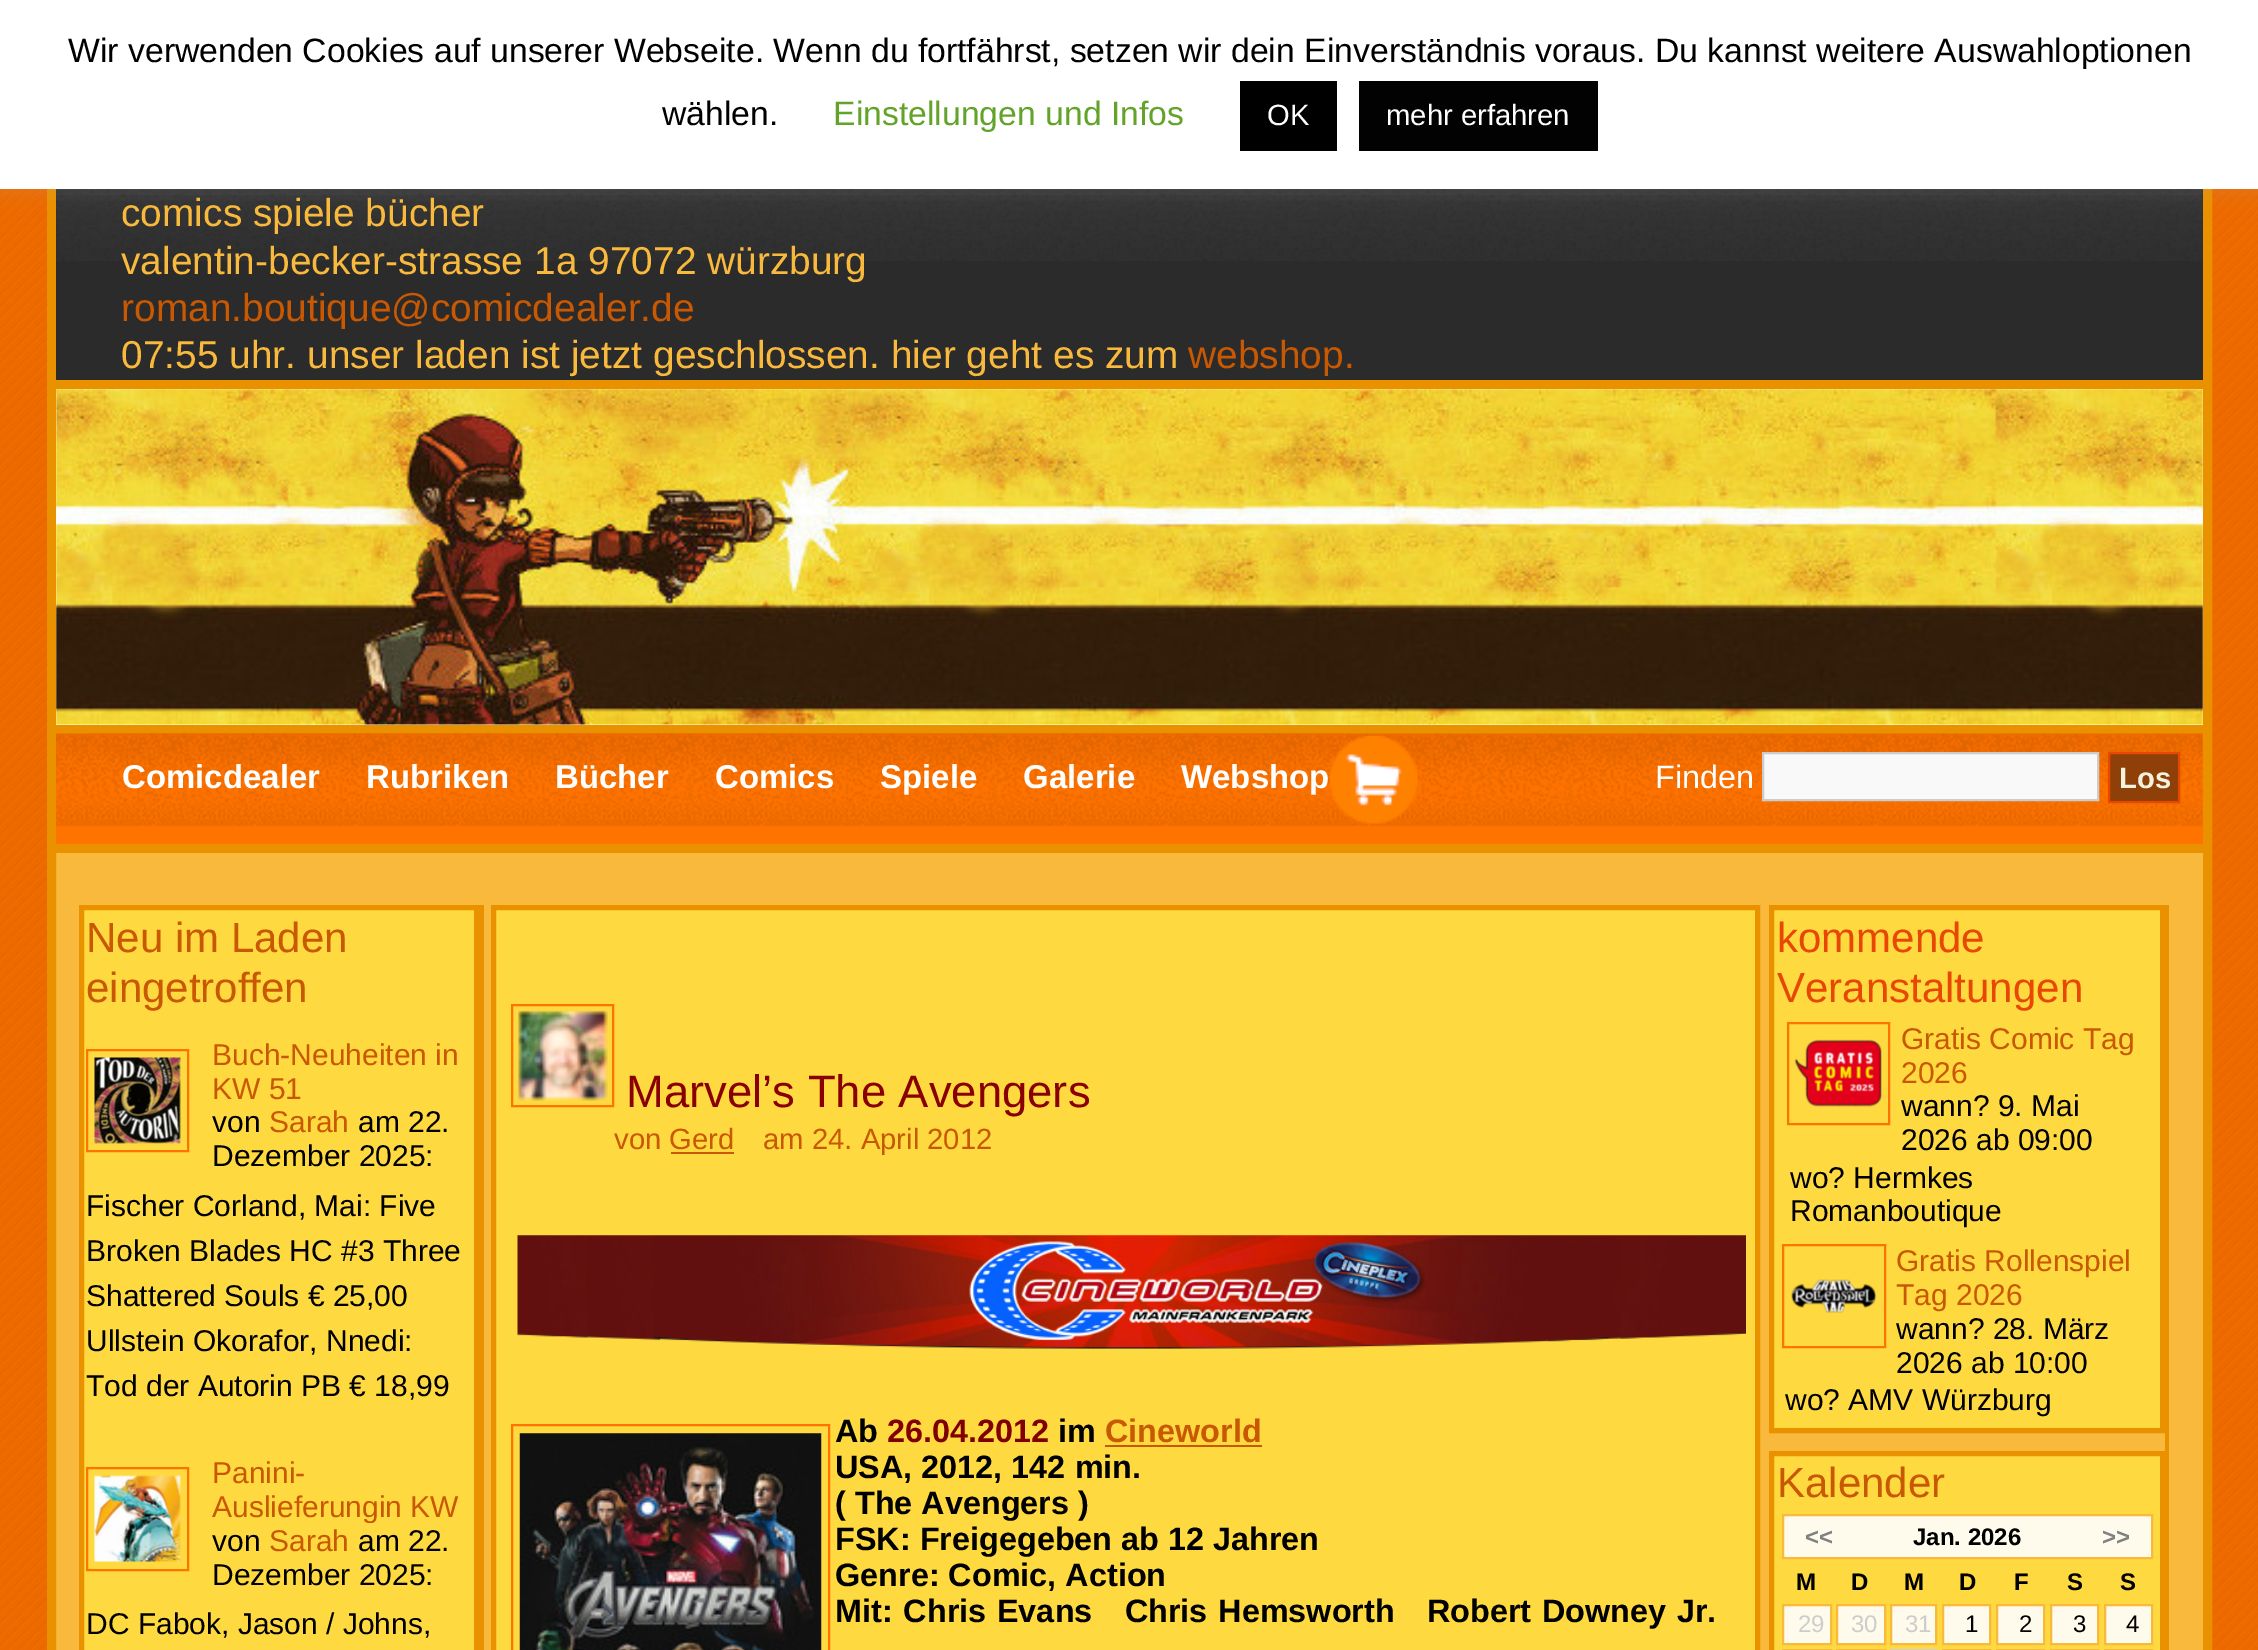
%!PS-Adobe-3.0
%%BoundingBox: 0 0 2258 1650
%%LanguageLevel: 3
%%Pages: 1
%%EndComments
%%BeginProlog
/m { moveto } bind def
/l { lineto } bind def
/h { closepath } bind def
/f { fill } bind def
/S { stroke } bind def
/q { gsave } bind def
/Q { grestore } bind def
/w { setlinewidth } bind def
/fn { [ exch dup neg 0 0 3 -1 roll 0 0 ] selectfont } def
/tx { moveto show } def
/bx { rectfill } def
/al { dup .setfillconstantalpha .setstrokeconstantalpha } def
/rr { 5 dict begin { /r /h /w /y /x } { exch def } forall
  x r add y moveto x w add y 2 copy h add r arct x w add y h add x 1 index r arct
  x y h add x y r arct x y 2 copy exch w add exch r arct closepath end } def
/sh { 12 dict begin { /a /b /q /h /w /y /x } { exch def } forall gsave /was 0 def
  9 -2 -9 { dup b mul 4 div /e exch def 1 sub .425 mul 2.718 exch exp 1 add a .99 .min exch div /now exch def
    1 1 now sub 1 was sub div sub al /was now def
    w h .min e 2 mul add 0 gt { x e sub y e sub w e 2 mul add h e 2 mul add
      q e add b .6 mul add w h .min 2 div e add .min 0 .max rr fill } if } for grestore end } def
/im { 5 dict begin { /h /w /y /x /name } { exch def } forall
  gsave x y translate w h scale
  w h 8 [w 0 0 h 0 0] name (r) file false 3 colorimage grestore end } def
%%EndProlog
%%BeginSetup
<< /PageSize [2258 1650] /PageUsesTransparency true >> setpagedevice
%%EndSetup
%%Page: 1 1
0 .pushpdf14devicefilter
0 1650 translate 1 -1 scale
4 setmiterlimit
1 setgray
0 0 2258 1650 bx
(image0.raw) 0 189 2258 1461 im
0.973 0.725 0.235 setrgbcolor
56 853 2147 797 bx
0.918 0.569 0 setrgbcolor
9 w
51.5 83.5 2156 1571 rectstroke
0.169 setgray
56 189 2147 191 bx
(image1.raw) 56 189 2147 72 im
0.675 0.671 0.671 setrgbcolor
0 -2 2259 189 0 11 0.3 sh
1 setgray
0 0 2258 189 bx
/LiberationSans-Regular 33.75 fn
0 setgray
(Wir verwenden Cookies auf unserer Webseite. Wenn du fortfährst, setzen wir dein Einverständnis voraus. Du kannst weitere Auswahloptionen) 68 62 tx
(wählen.) 662 125 tx
0.384 0.639 0.161 setrgbcolor
(Einstellungen und Infos) 833 125 tx
0 setgray
1240 81 97 70 bx
/LiberationSans-Regular 29.25 fn
1 setgray
(OK) 1267 125 tx
0.008 setgray
1359 81 239 70 bx
1 setgray
(mehr erfahren) 1386 125 tx
0.918 0.569 0 setrgbcolor
56 380 2147 9 bx
/LiberationSans-Regular 38.9 fn
0.973 0.725 0.235 setrgbcolor
(comics spiele bücher) 121 226 tx
(valentin-becker-strasse 1a) 121 274 tx
(97072 würzburg) 588 274 tx
0.784 0.345 0.008 setrgbcolor
(roman.boutique@comicdealer.de) 121 321 tx
0.973 0.725 0.235 setrgbcolor
(07:55 uhr. unser laden ist jetzt geschlossen. hier geht es zum) 121 368 tx
0.784 0.345 0.008 setrgbcolor
(webshop.) 1188 368 tx
1 setgray
56 389 2147 336 bx
(image2.raw) 56 389 2147 336 im
0.918 0.569 0 setrgbcolor
56 725 2147 9 bx
1 0.451 0 setrgbcolor
56 734 2147 110 bx
(image3.raw) 56 733 2147 94 im
0.918 0.569 0 setrgbcolor
56 844 2147 9 bx
(image4.raw) 88 733 1256 86 im
/LiberationSans-Bold 33 fn
1 setgray
(Comicdealer) 122 788 tx
(Rubriken) 366 788 tx
(Bücher) 555 788 tx
(Comics) 715 788 tx
(Spiele) 880 788 tx
(Galerie) 1023 788 tx
(Webshop) 1181 788 tx
(image5.raw) 1329 735 89 89 im
/LiberationSans-Regular 32.4 fn
(Finden) 1655 788 tx
0.976 setgray
1763 753 m 2098 753 l 2098 800 l 1763 800 l h q f Q
0.8 setgray
2 w
S
0.561 0.251 0.031 setrgbcolor
2109 753 m 2179 753 l 2179 802 l 2109 802 l h q f Q
0.91 0.278 0 setrgbcolor
S
/LiberationSans-Bold 29.25 fn
0.949 0.953 0.871 setrgbcolor
(Los) 2119 788 tx
0.918 0.569 0 setrgbcolor
79 905 405 4 bx
479 905 5 745 bx
1 0.851 0.251 setrgbcolor
84 910 390 740 bx
q
79 909 400 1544 rectclip
0.918 0.569 0 setrgbcolor
5 w
81.5 907.5 395 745 rectstroke
Q
/LiberationSans-Regular 42 fn
0.784 0.345 0.008 setrgbcolor
(Neu im Laden) 86 952 tx
(eingetroffen) 86 1002 tx
1 0.451 0 setrgbcolor
87 1050 101 101 rectstroke
(image6.raw) 94 1057 87 87 im
/LiberationSans-Regular 30 fn
0.784 0.345 0.008 setrgbcolor
(Buch-Neuheiten in) 212 1065 tx
(KW 51) 212 1099 tx
0 setgray
(von) 212 1132 tx
0.784 0.345 0.008 setrgbcolor
(Sarah) 269 1132 tx
0 setgray
(am 22.) 358 1132 tx
(Dezember 2025:) 212 1166 tx
(Fischer Corland, Mai: Five) 86 1216 tx
(Broken Blades HC #3 Three) 86 1261 tx
(Shattered Souls € 25,00) 86 1306 tx
(Ullstein Okorafor, Nnedi:) 86 1351 tx
(Tod der Autorin PB € 18,99) 86 1396 tx
1 0.451 0 setrgbcolor
87 1468 101 102 rectstroke
(image7.raw) 94 1475 87 87 im
0.784 0.345 0.008 setrgbcolor
(Panini-) 212 1483 tx
q
212 1456 258 67 rectclip
(Auslieferungin KW) 212 1517 tx
Q
0 setgray
(von) 212 1551 tx
0.784 0.345 0.008 setrgbcolor
(Sarah) 269 1551 tx
0 setgray
(am 22.) 358 1551 tx
(Dezember 2025:) 212 1585 tx
(DC Fabok, Jason / Johns,) 86 1634 tx
1 0.851 0.251 setrgbcolor
493.5 907.5 m 1757.5 907.5 l 1757.5 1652.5 l 493.5 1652.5 l h q f Q
0.918 0.569 0 setrgbcolor
5 w
S
1 0.451 0 setrgbcolor
2 w
512 1005 101 101 rectstroke
(image8.raw) 518 1010 90 91 im
/LiberationSans-Regular 45.4 fn
0.537 0 0 setrgbcolor
(Marvel’s The Avengers) 626 1107 tx
/LiberationSans-Regular 29.25 fn
0.784 0.345 0.008 setrgbcolor
(von Gerd) 614 1149 tx
671 1152 63 2 bx
(am 24. April 2012) 763 1149 tx
(image9.raw) 517 1235 1229 114 im
1 0.451 0 setrgbcolor
512 1425 317 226 rectstroke
(image10.raw) 519 1433 303 217 im
/LiberationSans-Bold 32.4 fn
0 setgray
(Ab) 835 1442 tx
0.502 0 0 setrgbcolor
(26.04.2012) 887 1442 tx
0 setgray
(im) 1058 1442 tx
0.784 0.345 0.008 setrgbcolor
(Cineworld) 1105 1442 tx
1105 1445 157 2 bx
0 setgray
(USA, 2012, 142 min.) 835 1478 tx
(\( The Avengers \)) 835 1514 tx
(FSK: Freigegeben ab 12 Jahren) 835 1550 tx
(Genre: Comic, Action) 835 1586 tx
835 1622 m 1.75 0 32 (Mit: Chris Evans   Chris Hemsworth   Robert Downey Jr.) widthshow
0.918 0.569 0 setrgbcolor
1769 905 400 4 bx
2165 905 4 745 bx
1 0.851 0.251 setrgbcolor
1774 910 386 518 bx
q
1769 909 396 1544 rectclip
0.918 0.569 0 setrgbcolor
5 w
1771.5 907.5 391 523 rectstroke
Q
/LiberationSans-Regular 42 fn
0.91 0.278 0 setrgbcolor
(kommende) 1777 952 tx
(Veranstaltungen) 1777 1002 tx
1 0.451 0 setrgbcolor
1788 1023 101 101 rectstroke
(image11.raw) 1794 1039 88 68 im
/LiberationSans-Regular 30 fn
0.784 0.345 0.008 setrgbcolor
(Gratis Comic Tag) 1901 1049 tx
(2026) 1901 1083 tx
0 setgray
(wann? 9. Mai) 1901 1116 tx
(2026 ab 09:00) 1901 1150 tx
(wo? Hermkes) 1790 1188 tx
(Romanboutique) 1790 1221 tx
1 0.451 0 setrgbcolor
1783 1245 102 102 rectstroke
(image12.raw) 1791 1279 85 34 im
0.784 0.345 0.008 setrgbcolor
(Gratis Rollenspiel) 1896 1271 tx
(Tag 2026) 1896 1305 tx
0 setgray
(wann? 28. März) 1896 1339 tx
(2026 ab 10:00) 1896 1373 tx
(wo? AMV Würzburg) 1785 1410 tx
1 0.851 0.251 setrgbcolor
1771.5 1453.5 m 2162.5 1453.5 l 2162.5 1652.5 l 1771.5 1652.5 l h q f Q
0.918 0.569 0 setrgbcolor
5 w
S
/LiberationSans-Regular 42 fn
0.784 0.345 0.008 setrgbcolor
(Kalender) 1777 1497 tx
1 0.984 0.925 setrgbcolor
1783 1515 m 2152 1515 l 2152 1558 l 1783 1558 l h q f Q
0.973 0.725 0.235 setrgbcolor
2 w
S
/LiberationSans-Bold 24 fn
0.502 setgray
(<<) 1805 1545 tx
0 setgray
(Jan. 2026) 1913 1545 tx
0.502 setgray
(>>) 2102 1545 tx
0 setgray
(M) 1796 1590 tx
(D) 1851 1590 tx
(M) 1904 1590 tx
(D) 1959 1590 tx
(F) 2014 1590 tx
(S) 2067 1590 tx
(S) 2120 1590 tx
1 0.984 0.925 setrgbcolor
1783 1605 m 1831 1605 l 1831 1644 l 1783 1644 l h q f Q
0.973 0.725 0.235 setrgbcolor
S
/LiberationSans-Regular 24 fn
0.8 setgray
(29) 1798 1632 tx
1 0.984 0.925 setrgbcolor
1837 1605 m 1885 1605 l 1885 1644 l 1837 1644 l h q f Q
0.973 0.725 0.235 setrgbcolor
S
0.8 setgray
(30) 1851 1632 tx
1 0.984 0.925 setrgbcolor
1891 1605 m 1936 1605 l 1936 1644 l 1891 1644 l h q f Q
0.973 0.725 0.235 setrgbcolor
S
0.8 setgray
(31) 1905 1632 tx
1 0.984 0.925 setrgbcolor
1943 1605 m 1990 1605 l 1990 1644 l 1943 1644 l h q f Q
0.973 0.725 0.235 setrgbcolor
S
0 setgray
(1) 1965 1632 tx
1 0.984 0.925 setrgbcolor
1997 1605 m 2044 1605 l 2044 1644 l 1997 1644 l h q f Q
0.973 0.725 0.235 setrgbcolor
S
0 setgray
(2) 2019 1632 tx
1 0.984 0.925 setrgbcolor
2051 1605 m 2098 1605 l 2098 1644 l 2051 1644 l h q f Q
0.973 0.725 0.235 setrgbcolor
S
0 setgray
(3) 2073 1632 tx
1 0.984 0.925 setrgbcolor
2105 1605 m 2152 1605 l 2152 1644 l 2105 1644 l h q f Q
0.973 0.725 0.235 setrgbcolor
S
0 setgray
(4) 2126 1632 tx
0.973 0.725 0.235 setrgbcolor
1783 1650 48 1 rectstroke
1837 1650 48 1 rectstroke
0.812 setgray
1890 1649 47 1 bx
0.973 0.725 0.235 setrgbcolor
1943 1650 47 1 rectstroke
1997 1650 47 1 rectstroke
2051 1650 47 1 rectstroke
2105 1650 47 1 rectstroke
.poppdf14devicefilter showpage
%%EOF
